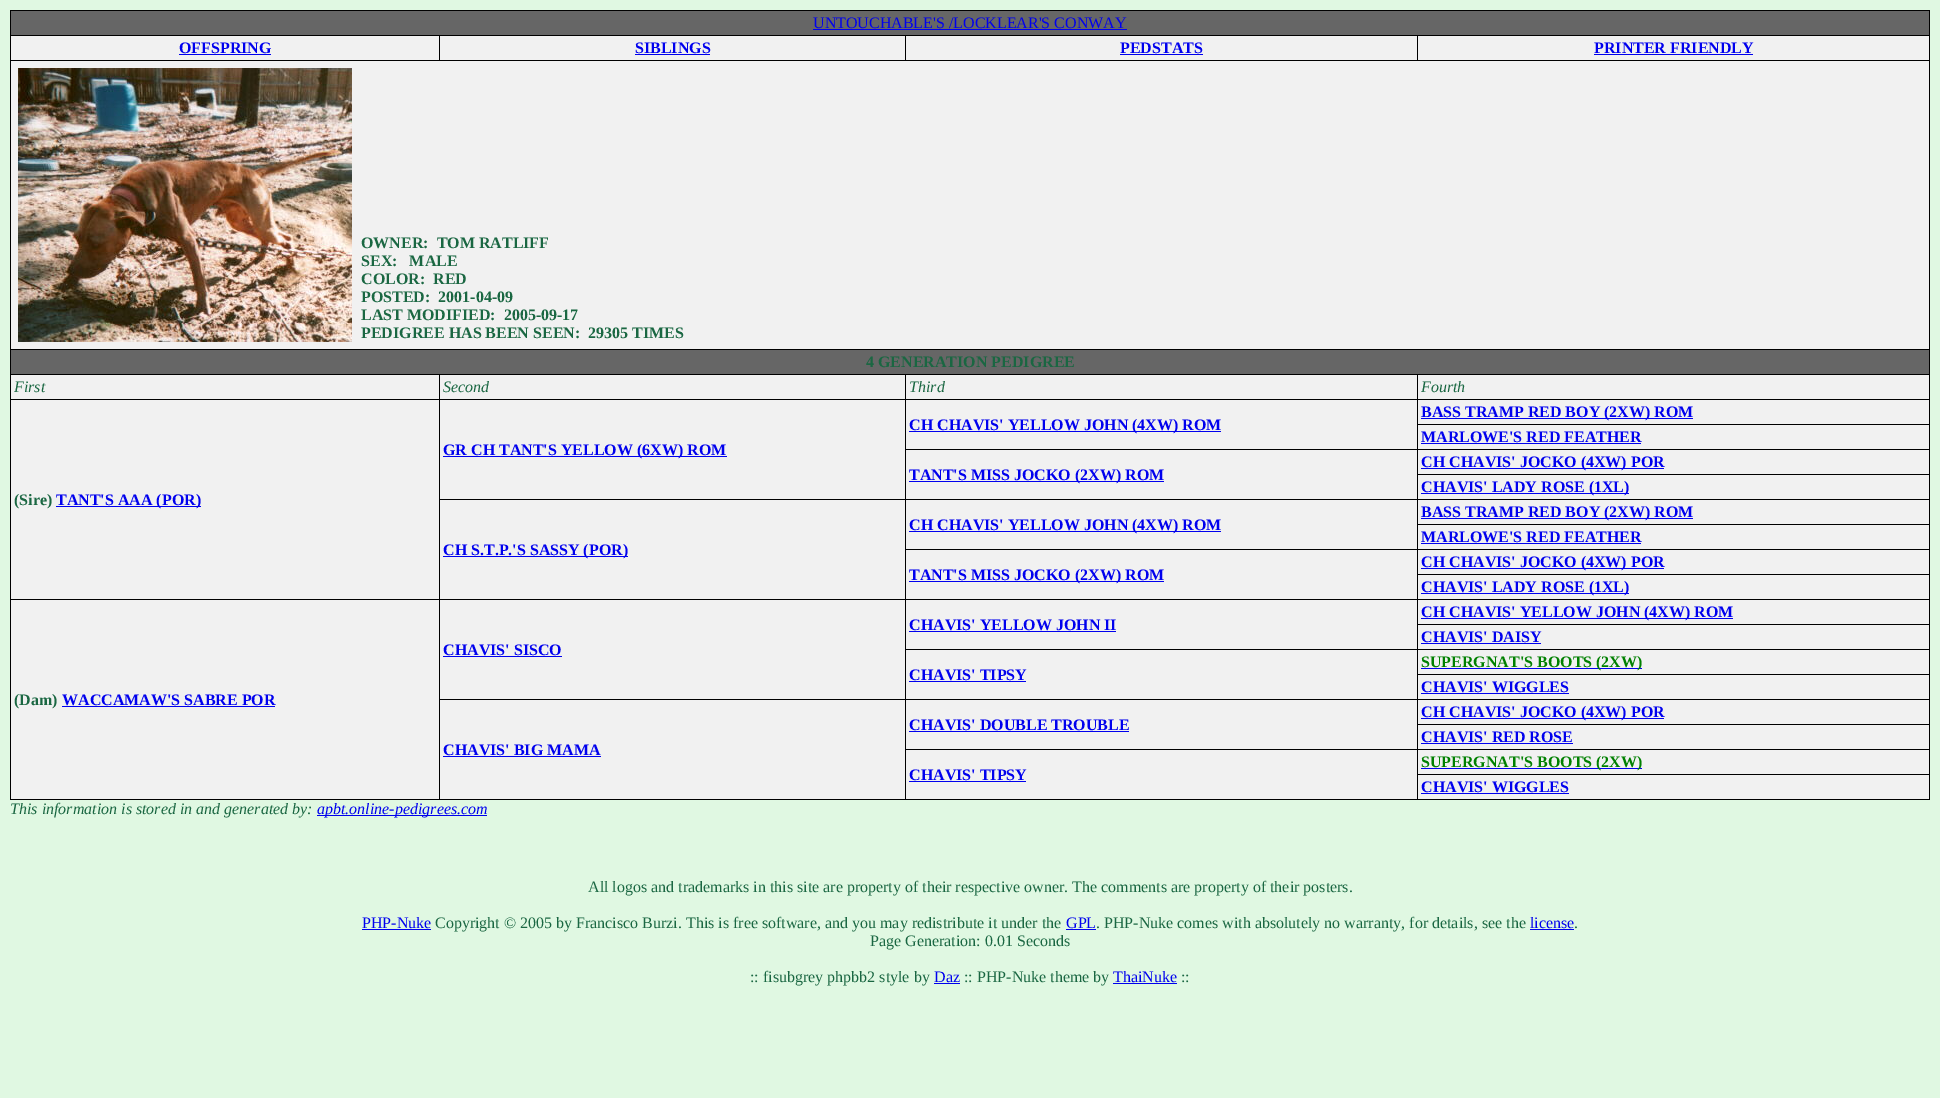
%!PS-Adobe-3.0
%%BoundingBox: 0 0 1940 1098
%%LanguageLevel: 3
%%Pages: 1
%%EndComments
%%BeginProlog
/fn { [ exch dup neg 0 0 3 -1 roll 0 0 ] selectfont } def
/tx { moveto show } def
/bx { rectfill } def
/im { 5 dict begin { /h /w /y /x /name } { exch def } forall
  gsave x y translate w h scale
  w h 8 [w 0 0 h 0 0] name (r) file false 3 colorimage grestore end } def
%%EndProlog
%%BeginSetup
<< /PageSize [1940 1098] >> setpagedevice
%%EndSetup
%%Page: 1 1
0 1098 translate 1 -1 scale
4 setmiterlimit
0.878 0.973 0.886 setrgbcolor
0 0 1940 1098 bx
0 setgray
10 10 1920 790 bx
0.4 setgray
11 11 1918 24 bx
/LiberationSerif-Regular 16 fn
0 0 0.933 setrgbcolor
(UNTOUCHABLE'S /LOCKLEAR'S CONWAY) 813 28 tx
813 29 314 1 bx
0.945 setgray
11 36 428 24 bx
/LiberationSerif-Bold 16 fn
0 0 0.933 setrgbcolor
(OFFSPRING) 179 53 tx
179 54 92 1 bx
0.945 setgray
440 36 465 24 bx
0 0 0.933 setrgbcolor
(SIBLINGS) 635 53 tx
635 54 75 1 bx
0.945 setgray
906 36 511 24 bx
0 0 0.933 setrgbcolor
(PEDSTATS) 1120 53 tx
1120 54 83 1 bx
0.945 setgray
1418 36 511 24 bx
0 0 0.933 setrgbcolor
(PRINTER FRIENDLY) 1594 53 tx
1594 54 159 1 bx
0.945 setgray
11 61 1918 288 bx
(image0.raw) 18 68 334 274 im
0.102 0.404 0.259 setrgbcolor
(OWNER:  TOM RATLIFF) 361 248 tx
(SEX:   MALE) 361 266 tx
(COLOR:  RED) 361 284 tx
(POSTED:  2001-04-09) 361 302 tx
(LAST MODIFIED:  2005-09-17) 361 320 tx
(PEDIGREE HAS BEEN SEEN:  29305 TIMES) 361 338 tx
0.4 setgray
11 350 1918 24 bx
0.102 0.404 0.259 setrgbcolor
(4 GENERATION PEDIGREE) 866 367 tx
0.945 setgray
11 375 428 24 bx
/LiberationSerif-Italic 16 fn
0.102 0.404 0.259 setrgbcolor
(First) 14 392 tx
0.945 setgray
440 375 465 24 bx
0.102 0.404 0.259 setrgbcolor
(Second) 443 392 tx
0.945 setgray
906 375 511 24 bx
0.102 0.404 0.259 setrgbcolor
(Third) 909 392 tx
0.945 setgray
1418 375 511 24 bx
0.102 0.404 0.259 setrgbcolor
(Fourth) 1421 392 tx
0.945 setgray
1418 400 511 24 bx
0 0 0.933 setrgbcolor
1421 418 272 1 bx
/LiberationSerif-Bold 16 fn
(BASS TRAMP RED BOY \(2XW\) ROM) 1421 417 tx
0.945 setgray
906 400 511 49 bx
0 0 0.933 setrgbcolor
909 431 312 1 bx
(CH CHAVIS' YELLOW JOHN \(4XW\) ROM) 909 430 tx
0.945 setgray
440 400 465 99 bx
0 0 0.933 setrgbcolor
443 456 284 1 bx
(GR CH TANT'S YELLOW \(6XW\) ROM) 443 455 tx
0.945 setgray
11 400 428 199 bx
0.102 0.404 0.259 setrgbcolor
(\(Sire\)) 14 505 tx
0 0 0.933 setrgbcolor
56 506 145 1 bx
(TANT'S AAA \(POR\)) 56 505 tx
0.945 setgray
1418 425 511 24 bx
0 0 0.933 setrgbcolor
(MARLOWE'S RED FEATHER) 1421 442 tx
1421 443 220 1 bx
0.945 setgray
1418 450 511 24 bx
0 0 0.933 setrgbcolor
1421 468 243 1 bx
(CH CHAVIS' JOCKO \(4XW\) POR) 1421 467 tx
0.945 setgray
906 450 511 49 bx
0 0 0.933 setrgbcolor
909 481 255 1 bx
(TANT'S MISS JOCKO \(2XW\) ROM) 909 480 tx
0.945 setgray
1418 475 511 24 bx
0 0 0.933 setrgbcolor
1421 493 208 1 bx
(CHAVIS' LADY ROSE \(1XL\)) 1421 492 tx
0.945 setgray
1418 500 511 24 bx
0 0 0.933 setrgbcolor
1421 518 272 1 bx
(BASS TRAMP RED BOY \(2XW\) ROM) 1421 517 tx
0.945 setgray
906 500 511 49 bx
0 0 0.933 setrgbcolor
909 531 312 1 bx
(CH CHAVIS' YELLOW JOHN \(4XW\) ROM) 909 530 tx
0.945 setgray
440 500 465 99 bx
0 0 0.933 setrgbcolor
443 556 185 1 bx
(CH S.T.P.'S SASSY \(POR\)) 443 555 tx
0.945 setgray
1418 525 511 24 bx
0 0 0.933 setrgbcolor
(MARLOWE'S RED FEATHER) 1421 542 tx
1421 543 220 1 bx
0.945 setgray
1418 550 511 24 bx
0 0 0.933 setrgbcolor
1421 568 243 1 bx
(CH CHAVIS' JOCKO \(4XW\) POR) 1421 567 tx
0.945 setgray
906 550 511 49 bx
0 0 0.933 setrgbcolor
909 581 255 1 bx
(TANT'S MISS JOCKO \(2XW\) ROM) 909 580 tx
0.945 setgray
1418 575 511 24 bx
0 0 0.933 setrgbcolor
1421 593 208 1 bx
(CHAVIS' LADY ROSE \(1XL\)) 1421 592 tx
0.945 setgray
1418 600 511 24 bx
0 0 0.933 setrgbcolor
1421 618 312 1 bx
(CH CHAVIS' YELLOW JOHN \(4XW\) ROM) 1421 617 tx
0.945 setgray
906 600 511 49 bx
0 0 0.933 setrgbcolor
(CHAVIS' YELLOW JOHN II) 909 630 tx
909 631 207 1 bx
0.945 setgray
440 600 465 99 bx
0 0 0.933 setrgbcolor
(CHAVIS' SISCO) 443 655 tx
443 656 119 1 bx
0.945 setgray
11 600 428 199 bx
0.102 0.404 0.259 setrgbcolor
(\(Dam\)) 14 705 tx
0 0 0.933 setrgbcolor
(WACCAMAW'S SABRE POR) 62 705 tx
62 706 213 1 bx
0.945 setgray
1418 625 511 24 bx
0 0 0.933 setrgbcolor
(CHAVIS' DAISY) 1421 642 tx
1421 643 120 1 bx
0.945 setgray
1418 650 511 24 bx
0 0 0.933 setrgbcolor
1421 668 221 1 bx
0 0.502 0 setrgbcolor
(SUPERGNAT'S BOOTS \(2XW\)) 1421 667 tx
0.945 setgray
906 650 511 49 bx
0 0 0.933 setrgbcolor
(CHAVIS' TIPSY) 909 680 tx
909 681 117 1 bx
0.945 setgray
1418 675 511 24 bx
0 0 0.933 setrgbcolor
(CHAVIS' WIGGLES) 1421 692 tx
1421 693 148 1 bx
0.945 setgray
1418 700 511 24 bx
0 0 0.933 setrgbcolor
1421 718 243 1 bx
(CH CHAVIS' JOCKO \(4XW\) POR) 1421 717 tx
0.945 setgray
906 700 511 49 bx
0 0 0.933 setrgbcolor
(CHAVIS' DOUBLE TROUBLE) 909 730 tx
909 731 220 1 bx
0.945 setgray
440 700 465 99 bx
0 0 0.933 setrgbcolor
(CHAVIS' BIG MAMA) 443 755 tx
443 756 158 1 bx
0.945 setgray
1418 725 511 24 bx
0 0 0.933 setrgbcolor
(CHAVIS' RED ROSE) 1421 742 tx
1421 743 152 1 bx
0.945 setgray
1418 750 511 24 bx
0 0 0.933 setrgbcolor
1421 768 221 1 bx
0 0.502 0 setrgbcolor
(SUPERGNAT'S BOOTS \(2XW\)) 1421 767 tx
0.945 setgray
906 750 511 49 bx
0 0 0.933 setrgbcolor
(CHAVIS' TIPSY) 909 780 tx
909 781 117 1 bx
0.945 setgray
1418 775 511 24 bx
0 0 0.933 setrgbcolor
(CHAVIS' WIGGLES) 1421 792 tx
1421 793 148 1 bx
/LiberationSerif-Italic 16 fn
0.102 0.404 0.259 setrgbcolor
(This information is stored in and generated by:) 10 814 tx
0 0 0.933 setrgbcolor
317 815 170 1 bx
(apbt.online-pedigrees.com) 317 814 tx
/LiberationSerif-Regular 16 fn
0.102 0.404 0.259 setrgbcolor
(All logos and trademarks in this site are property of their respective owner. The comments are property of their posters.) 588 892 tx
0 0 0.933 setrgbcolor
(PHP-Nuke) 362 928 tx
362 929 69 1 bx
0.102 0.404 0.259 setrgbcolor
(Copyright © 2005 by Francisco Burzi. This is free software, and you may redistribute it under the) 435 928 tx
0 0 0.933 setrgbcolor
(GPL) 1066 928 tx
0.102 0.404 0.259 setrgbcolor
(. PHP-Nuke comes with absolutely no warranty, for details, see the) 1096 928 tx
0 0 0.933 setrgbcolor
1066 929 30 1 bx
(license) 1530 928 tx
0.102 0.404 0.259 setrgbcolor
(.) 1574 928 tx
0 0 0.933 setrgbcolor
1530 929 44 1 bx
0.102 0.404 0.259 setrgbcolor
(Page Generation: 0.01 Seconds) 870 946 tx
(:: fisubgrey phpbb2 style by) 750 982 tx
0 0 0.933 setrgbcolor
(Daz) 934 982 tx
934 983 26 1 bx
0.102 0.404 0.259 setrgbcolor
(:: PHP-Nuke theme by) 964 982 tx
0 0 0.933 setrgbcolor
(ThaiNuke) 1113 982 tx
1113 983 64 1 bx
0.102 0.404 0.259 setrgbcolor
(::) 1181 982 tx
showpage
%%EOF
